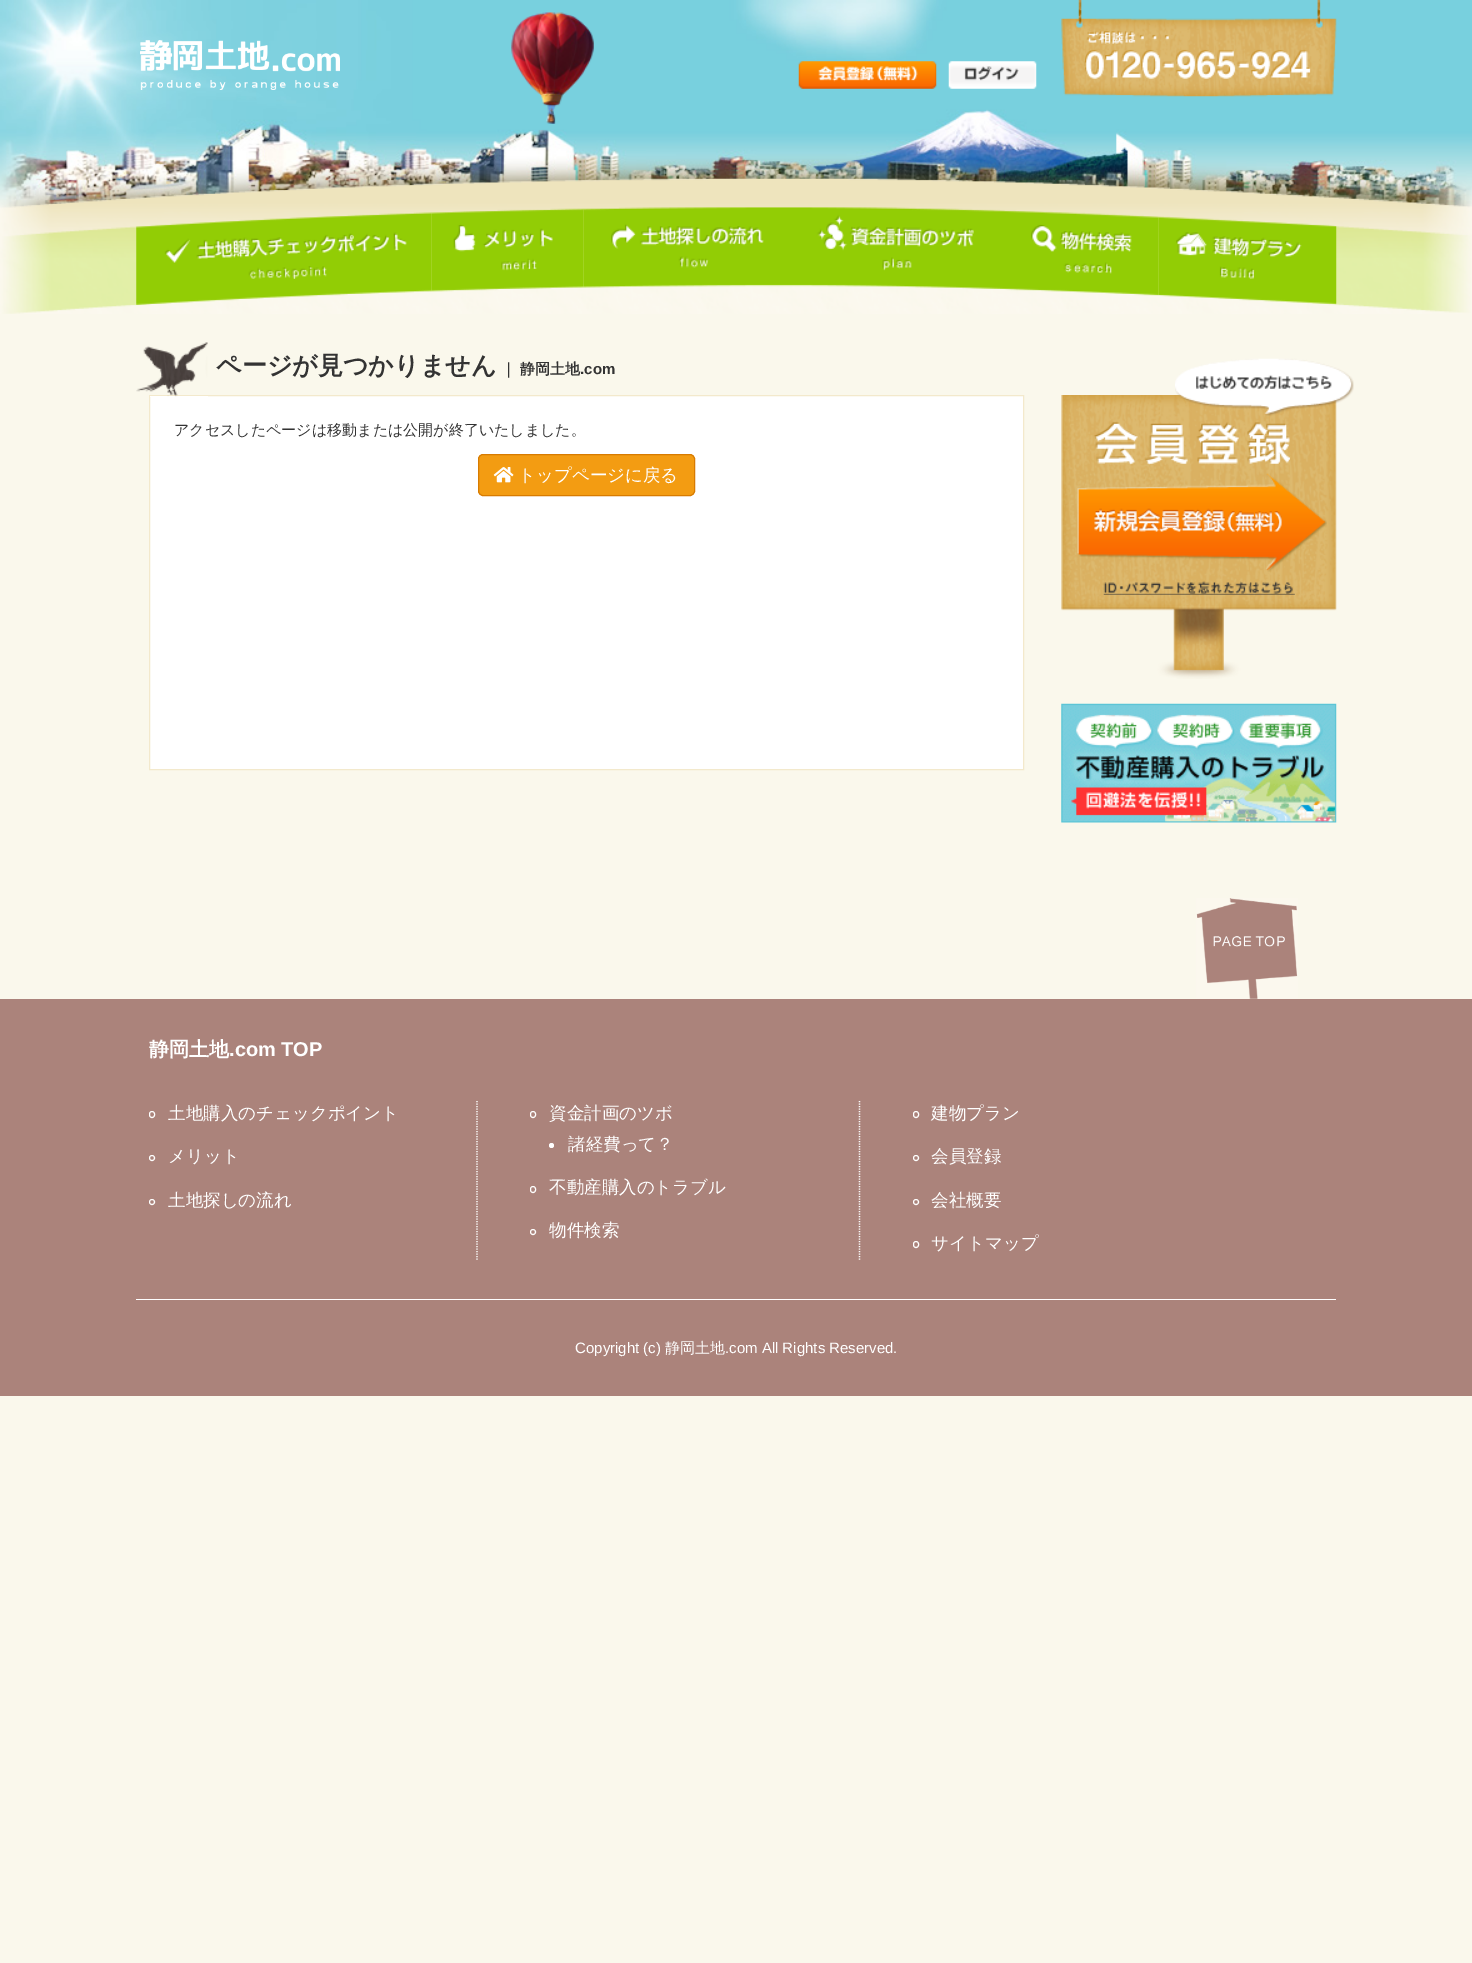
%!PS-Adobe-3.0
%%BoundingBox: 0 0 1472 1963
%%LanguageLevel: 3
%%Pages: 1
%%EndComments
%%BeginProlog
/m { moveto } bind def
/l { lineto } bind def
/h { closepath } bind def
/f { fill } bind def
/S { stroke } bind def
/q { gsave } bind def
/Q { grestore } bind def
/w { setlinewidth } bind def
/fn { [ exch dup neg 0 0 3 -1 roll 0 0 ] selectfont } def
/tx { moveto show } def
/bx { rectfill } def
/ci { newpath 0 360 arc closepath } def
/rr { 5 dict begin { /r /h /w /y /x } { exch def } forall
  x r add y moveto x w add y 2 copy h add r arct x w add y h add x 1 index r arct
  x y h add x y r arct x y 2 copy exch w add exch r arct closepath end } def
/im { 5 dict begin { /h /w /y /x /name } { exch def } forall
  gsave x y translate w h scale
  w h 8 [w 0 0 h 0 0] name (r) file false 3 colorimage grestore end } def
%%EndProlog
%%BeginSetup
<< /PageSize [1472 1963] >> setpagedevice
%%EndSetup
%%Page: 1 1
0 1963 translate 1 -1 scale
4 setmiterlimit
0.98 0.973 0.925 setrgbcolor
0 0 1472 1963 bx
(image0.raw) 0 0 1472 209 im
(image1.raw) 140 40 200 50 im
(image2.raw) 511 12 83 112 im
(image3.raw) 798 61 139 28 im
(image4.raw) 948 61 89 28 im
(image5.raw) 1061 0 276 97 im
(image6.raw) 0 178 1472 136 im
(image7.raw) 136 212 296 93 im
(image8.raw) 431 208 153 84 im
(image9.raw) 583 207 207 81 im
(image10.raw) 790 207 210 82 im
(image11.raw) 1000 210 159 86 im
(image12.raw) 1158 216 179 89 im
1 setgray
149.5 395.5 m 1023.5 395.5 l 1023.5 769.5 l 149.5 769.5 l h q f Q
0.953 0.914 0.8 setrgbcolor
S
(image13.raw) 136 342 72 55 im
/WenQuanYiZenHei-Bold 25 fn
0.2 setgray
(ページが見つかりません) 216 374 tx
/WenQuanYiZenHei-Bold 15 fn
(｜) 501 374 tx
(静岡土地) 520 374 tx
/LiberationSans-Bold 15 fn
(.com) 580 374 tx
/WenQuanYiZenHei-Medium 15 fn
(アクセスしたページは移動または公開が終了いたしました。) 174 435 tx
0.953 0.612 0.071 setrgbcolor
478.5 454.5 216 41 4.5 rr q f Q
0.847 0.482 0 setrgbcolor
S
(image14.raw) 493 467 21 16 im
/WenQuanYiZenHei-Medium 17.5 fn
1 setgray
(トップページに戻る) 518 481 tx
(image15.raw) 1061 395 276 284 im
(image16.raw) 1175 358 179 58 im
(image17.raw) 1094 422 196 43 im
(image18.raw) 1077 473 250 99 im
(image19.raw) 1103 581 192 14 im
(image20.raw) 1061 703 276 120 im
(image21.raw) 1196 898 102 101 im
0.671 0.514 0.482 setrgbcolor
0 999 1472 397 bx
1 setgray
136 1299 1200 1 bx
/WenQuanYiZenHei-Bold 20 fn
(静岡土地) 149 1056 tx
/LiberationSans-Bold 20 fn
(.com TOP) 229 1056 tx
1.2 w
[1.25 1.25] 0 setdash
477 1101 m 477 1261 l S
1 w
[] 0 setdash
149.5 1111.5 5 6 2.5 rr S
/WenQuanYiZenHei-Medium 17.5 fn
(土地購入のチェックポイント) 168 1119 tx
152 1158 2.5 ci S
(メリット) 168 1162 tx
152 1202 2.5 ci S
(土地探しの流れ) 168 1206 tx
1.2 w
[1.25 1.25] 0 setdash
859.5 1101 m 859.5 1261 l S
1 w
[] 0 setdash
530.5 1111.5 5 6 2.5 rr S
(資金計画のツボ) 549 1119 tx
551.5 1145.5 2.5 ci f
(諸経費って？) 568 1150 tx
530.5 1186.5 5 6 2.5 rr S
(不動産購入のトラブル) 549 1193 tx
533 1232 2.5 ci S
(物件検索) 549 1236 tx
913.5 1111.5 5 6 2.5 rr S
(建物プラン) 931 1119 tx
916 1158 2.5 ci S
(会員登録) 931 1162 tx
916 1202 2.5 ci S
(会社概要) 931 1206 tx
913.5 1241.5 5 6 2.5 rr S
(サイトマップ) 931 1249 tx
/LiberationSans-Regular 15 fn
(Copyright \(c\)) 575 1353 tx
/WenQuanYiZenHei-Medium 15 fn
(静岡土地) 665 1353 tx
/LiberationSans-Regular 15 fn
(.com All Rights Reserved.) 725 1353 tx
showpage
%%EOF
